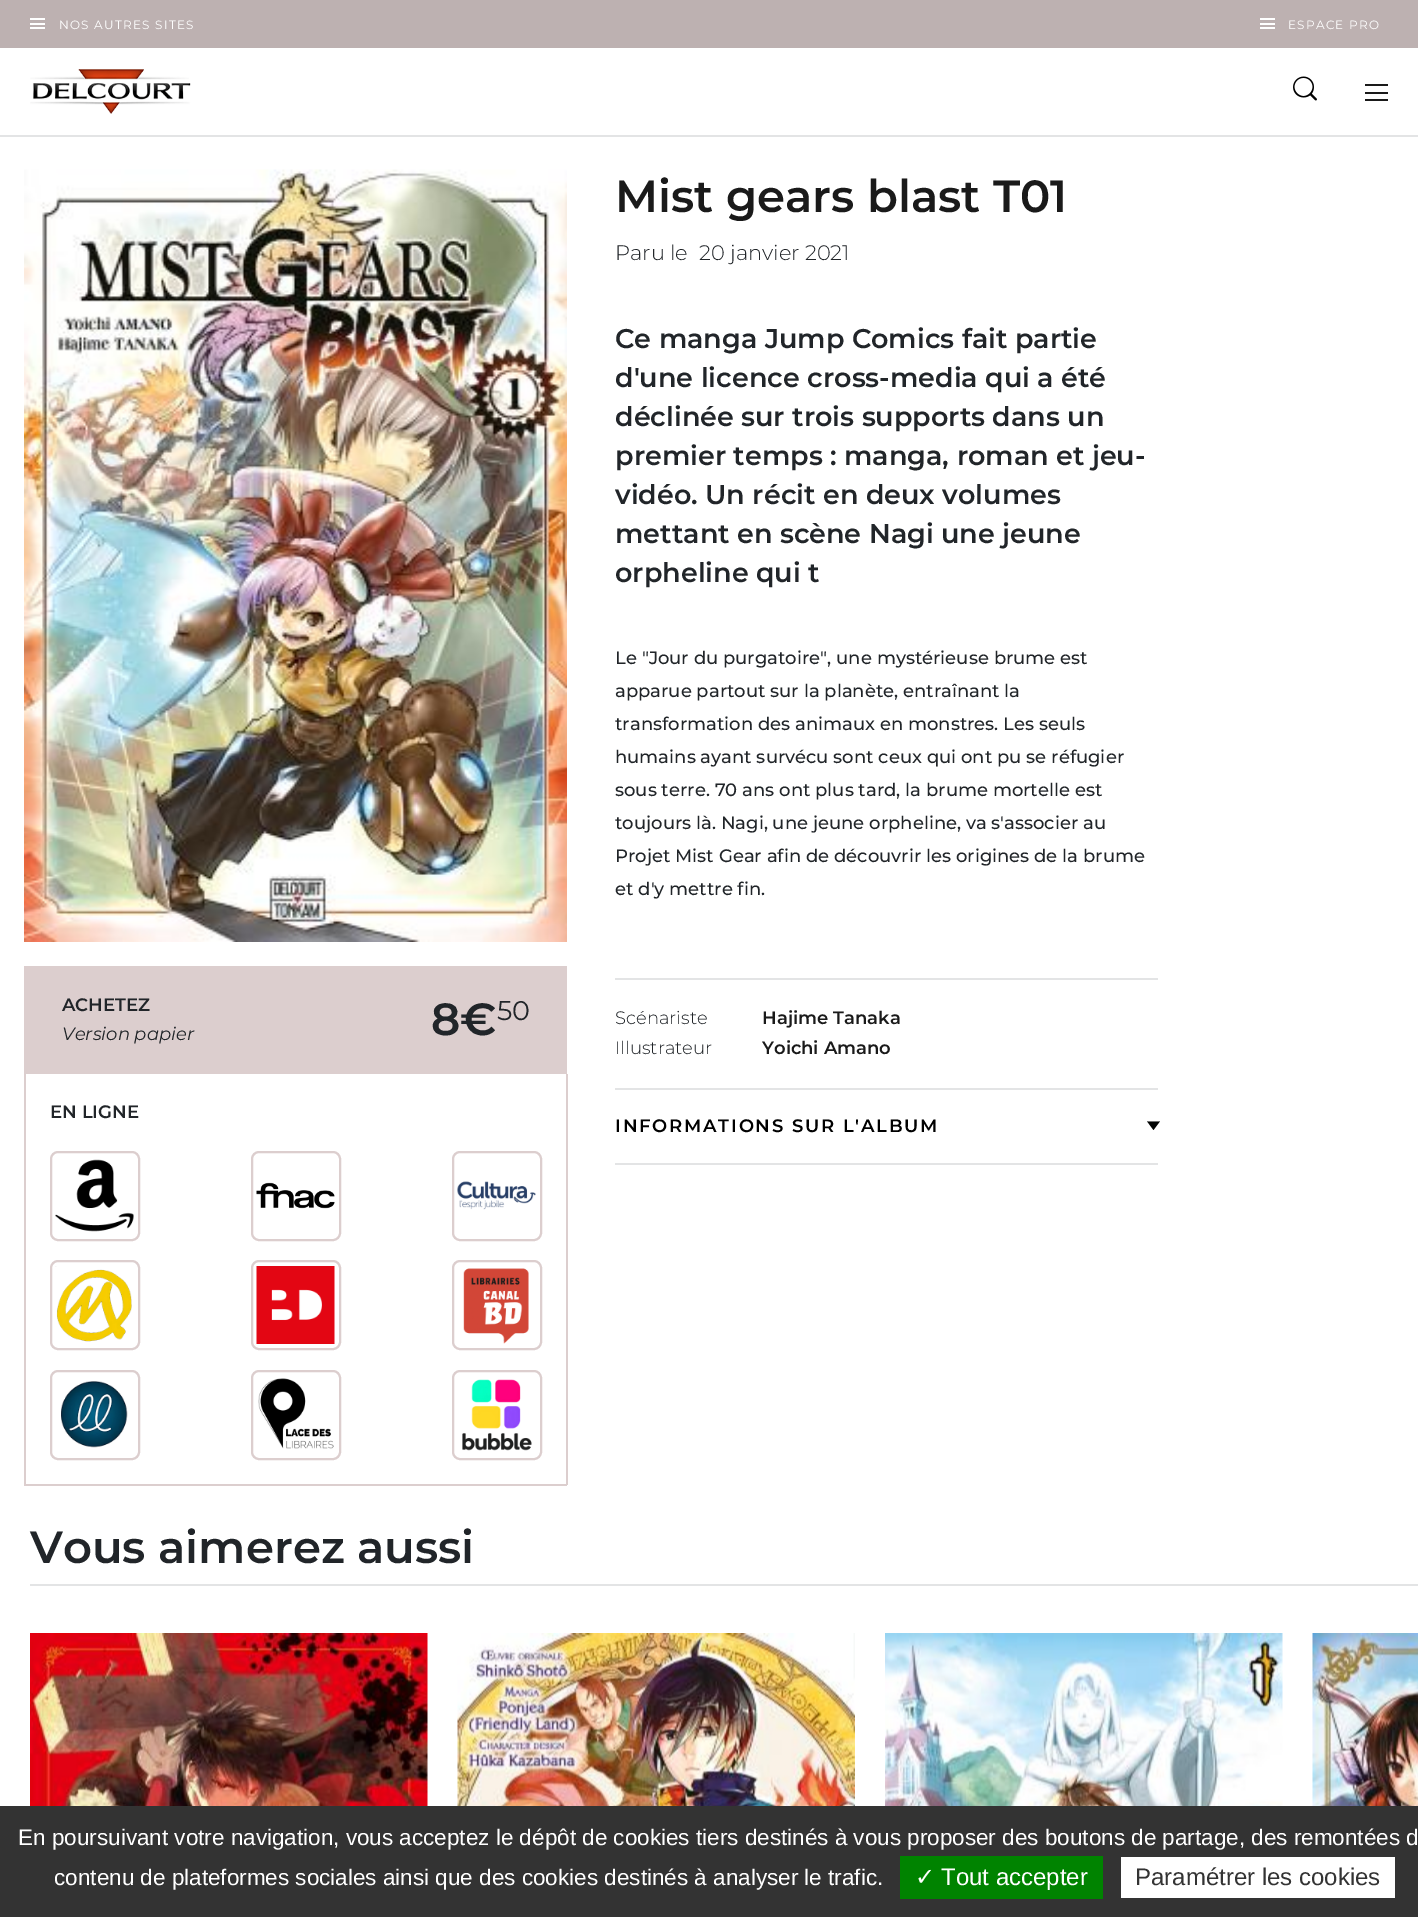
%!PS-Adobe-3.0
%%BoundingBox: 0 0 1418 1917
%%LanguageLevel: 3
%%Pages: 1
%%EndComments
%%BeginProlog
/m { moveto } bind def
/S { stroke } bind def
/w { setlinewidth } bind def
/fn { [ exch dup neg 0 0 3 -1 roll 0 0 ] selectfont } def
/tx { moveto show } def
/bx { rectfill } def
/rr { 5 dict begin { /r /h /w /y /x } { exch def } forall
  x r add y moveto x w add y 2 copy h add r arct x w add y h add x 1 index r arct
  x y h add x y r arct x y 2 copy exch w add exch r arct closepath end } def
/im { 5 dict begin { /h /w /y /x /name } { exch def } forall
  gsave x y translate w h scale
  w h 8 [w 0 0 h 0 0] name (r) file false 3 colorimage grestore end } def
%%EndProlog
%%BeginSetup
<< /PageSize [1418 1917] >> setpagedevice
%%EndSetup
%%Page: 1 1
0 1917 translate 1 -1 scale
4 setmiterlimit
1 setgray
0 0 1418 1917 bx
0.741 0.694 0.694 setrgbcolor
0 0 1418 48 bx
1 setgray
30 23 15 2 bx
30 18 15 2 bx
30 27 15 2 bx
/Montserrat-Regular 12 fn
59 29 m 1.25 0 (NOS AUTRES SITES) ashow
1260 23 15 2 bx
1260 18 15 2 bx
1260 27 15 2 bx
1288 29 m 1.25 0 (ESPACE PRO) ashow
0.89 0.894 0.898 setrgbcolor
0 135 1418 2 bx
(image0.raw) 30 69 161 45 im
(image1.raw) 1293 76 24 25 im
0.102 setgray
1365 92 23 2 bx
1365 84 23 2 bx
1365 99 23 2 bx
(image2.raw) 24 169 543 773 im
0.863 0.808 0.808 setrgbcolor
24 966 543 108 bx
/Montserrat-SemiBold 18 fn
0.129 0.145 0.161 setrgbcolor
(ACHETEZ) 62 1011 tx
/Montserrat-Italic 18 fn
(Version papier) 62 1040 tx
/Montserrat-SemiBold 45 fn
(8€) 431 1035 tx
/Montserrat-Regular 27 fn
(50) 497 1020 tx
0.863 0.808 0.808 setrgbcolor
566 1074 2 411 bx
24 1484 543 2 bx
24 1074 2 411 bx
/Montserrat-SemiBold 18 fn
0.129 0.145 0.161 setrgbcolor
(EN LIGNE) 50 1118 tx
0.863 0.808 0.808 setrgbcolor
2 w
51 1152 88 88 7 rr S
(image3.raw) 55 1159 79 73 im
252 1152 88 88 7 rr S
(image4.raw) 256 1182 79 27 im
453 1152 88 88 7 rr S
(image5.raw) 457 1181 79 29 im
51 1261 88 88 7 rr S
(image6.raw) 55 1266 77 76 im
252 1261 88 88 7 rr S
(image7.raw) 256 1266 79 78 im
453 1261 88 88 7 rr S
(image8.raw) 463 1268 66 76 im
51 1371 88 88 7 rr S
(image9.raw) 61 1381 67 67 im
252 1371 88 88 7 rr S
(image10.raw) 258 1378 76 71 im
453 1371 88 88 7 rr S
(image11.raw) 462 1379 70 72 im
/Montserrat-SemiBold 45 fn
0.102 setgray
(Mist gears blast T01) 615 212 tx
/Montserrat-Light 21 fn
0.129 0.145 0.161 setrgbcolor
(Paru le) 615 260 tx
(20 janvier 2021) 699 260 tx
/Montserrat-SemiBold 27 fn
(Ce manga Jump Comics fait partie) 615 348 tx
(d'une licence cross-media qui a été) 615 387 tx
(déclinée sur trois supports dans un) 615 426 tx
(premier temps : manga, roman et jeu-) 615 465 tx
(vidéo. Un récit en deux volumes) 615 504 tx
(mettant en scène Nagi une jeune) 615 543 tx
(orpheline qui t) 615 582 tx
/Montserrat-Medium 18 fn
(Le "Jour du purgatoire", une mystérieuse brume est) 615 664 tx
(apparue partout sur la planète, entraînant la) 615 697 tx
(transformation des animaux en monstres. Les seuls) 615 730 tx
(humains ayant survécu sont ceux qui ont pu se réfugier) 615 763 tx
(sous terre. 70 ans ont plus tard, la brume mortelle est) 615 796 tx
(toujours là. Nagi, une jeune orpheline, va s'associer au) 615 829 tx
(Projet Mist Gear afin de découvrir les origines de la brume) 615 862 tx
(et d'y mettre fin.) 615 895 tx
0.89 0.894 0.898 setrgbcolor
615 978 543 2 bx
615 1088 543 2 bx
/Montserrat-Light 18 fn
0.129 0.145 0.161 setrgbcolor
(Scénariste) 615 1024 tx
/Montserrat-SemiBold 18 fn
0.102 setgray
(Hajime Tanaka) 762 1024 tx
/Montserrat-Light 18 fn
0.129 0.145 0.161 setrgbcolor
(Illustrateur) 615 1054 tx
/Montserrat-SemiBold 18 fn
0.102 setgray
(Yoichi Amano) 762 1054 tx
0.89 0.894 0.898 setrgbcolor
615 1163 543 2 bx
0 setgray
615 1132 m 1.8 0 (INFORMATIONS SUR L'ALBUM) ashow
(image12.raw) 1147 1121 13 9 im
/Montserrat-SemiBold 45 fn
0.129 0.145 0.161 setrgbcolor
(Vous aimerez aussi) 30 1563 tx
0.89 0.894 0.898 setrgbcolor
30 1584 1388 2 bx
(image13.raw) 30 1633 398 173 im
(image14.raw) 457 1633 398 173 im
(image15.raw) 885 1633 398 173 im
(image16.raw) 1312 1633 106 173 im
0.2 setgray
0 1806 1418 111 bx
/LiberationSans-Regular 22.5 fn
1 setgray
(En poursuivant votre navigation, vous acceptez le dépôt de cookies tiers destinés à vous proposer des boutons de partage, des remontées d) 18 1845 tx
(contenu de plateformes sociales ainsi que des cookies destinés à analyser le trafic.) 54 1885 tx
0 0.514 0 setrgbcolor
900 1856 203 43 bx
/DejaVuSans-Regular 24 fn
1 setgray
(✓) 915 1885 tx
/LiberationSans-Regular 24 fn
(Tout accepter) 941 1885 tx
1121 1857 274 41 bx
0.2 setgray
(Paramétrer les cookies) 1135 1885 tx
showpage
%%EOF
